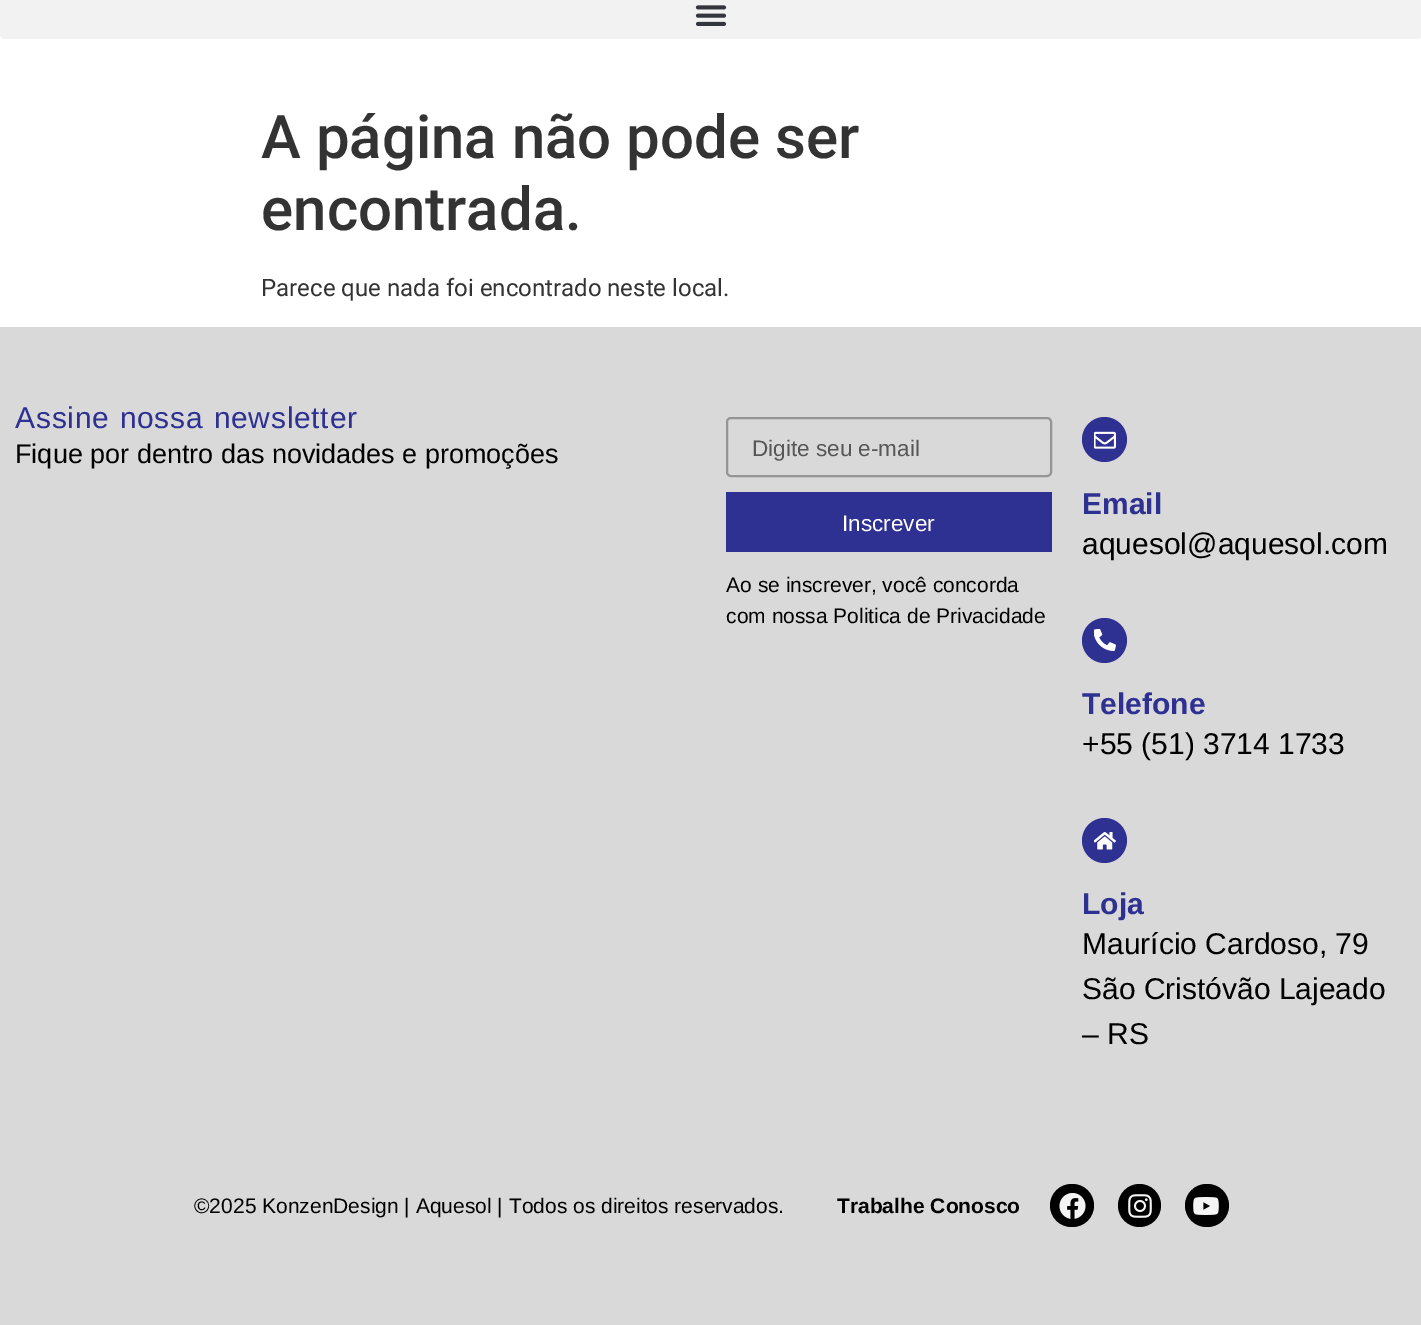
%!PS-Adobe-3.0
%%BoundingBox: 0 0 1421 1325
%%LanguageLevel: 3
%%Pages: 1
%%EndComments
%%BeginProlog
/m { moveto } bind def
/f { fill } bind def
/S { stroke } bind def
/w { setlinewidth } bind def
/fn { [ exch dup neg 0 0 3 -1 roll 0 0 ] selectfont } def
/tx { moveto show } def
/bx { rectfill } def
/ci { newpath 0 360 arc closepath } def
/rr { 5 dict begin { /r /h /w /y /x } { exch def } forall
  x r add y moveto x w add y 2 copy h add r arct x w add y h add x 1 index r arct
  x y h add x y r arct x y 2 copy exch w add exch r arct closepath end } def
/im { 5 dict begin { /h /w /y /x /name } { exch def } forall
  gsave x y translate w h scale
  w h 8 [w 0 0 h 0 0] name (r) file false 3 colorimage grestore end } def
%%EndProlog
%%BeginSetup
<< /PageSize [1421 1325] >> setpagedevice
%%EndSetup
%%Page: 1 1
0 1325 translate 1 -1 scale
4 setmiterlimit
1 setgray
0 0 1421 1325 bx
0.949 setgray
0 -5 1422 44 5 rr f
(image0.raw) 695 5 32 21 im
/Roboto-Medium 60 fn
0.2 setgray
(A página não pode ser) 261 158 tx
(encontrada.) 261 230 tx
/Roboto-Regular 24 fn
(Parece que nada foi encontrado neste local.) 261 296 tx
0.851 setgray
0 327 1421 998 bx
/LiberationSans-Regular 30 fn
0.18 0.188 0.573 setrgbcolor
15 428 m 1 0 32 0.75 0 (Assine nossa newsletter) awidthshow
/LiberationSans-Regular 27 fn
0 setgray
(Fique por dentro das novidades e promoções) 15 463 tx
0.584 setgray
2 w
727 418 324 58 4 rr S
/LiberationSans-Regular 22.5 fn
0.341 setgray
(Digite seu e-mail) 752 456 tx
0.18 0.188 0.573 setrgbcolor
726 492 326 60 bx
1 setgray
(Inscrever) 842 531 tx
/LiberationSans-Regular 21 fn
0 setgray
(Ao se inscrever, você concorda) 726 592 tx
(com nossa Politica de Privacidade) 726 623 tx
0.18 0.188 0.573 setrgbcolor
1104.5 439.5 22.5 ci f
(image1.raw) 1094 431 22 18 im
/LiberationSans-Bold 30 fn
(Email) 1082 514 tx
/LiberationSans-Regular 30 fn
0 setgray
(aquesol@aquesol.com) 1082 554 tx
0.18 0.188 0.573 setrgbcolor
1104.5 640.5 22.5 ci f
(image2.raw) 1094 629 22 22 im
/LiberationSans-Bold 30 fn
(Telefone) 1082 714 tx
/LiberationSans-Regular 30 fn
0 setgray
(+55 \(51\) 3714 1733) 1082 754 tx
0.18 0.188 0.573 setrgbcolor
1104.5 840.5 22.5 ci f
(image3.raw) 1094 832 22 18 im
/LiberationSans-Bold 30 fn
(Loja) 1082 914 tx
/LiberationSans-Regular 30 fn
0 setgray
(Maurício Cardoso, 79) 1082 954 tx
(São Cristóvão Lajeado) 1082 999 tx
(– RS) 1082 1044 tx
/LiberationSans-Regular 21 fn
(©2025 KonzenDesign | Aquesol | Todos os direitos reservados.) 194 1213 tx
/LiberationSans-Bold 21 fn
(Trabalhe Conosco) 837 1213 tx
1050 1184 44 43 21.5 rr f
(image4.raw) 1059 1193 27 26 im
1139.5 1205.5 21.5 ci f
(image5.raw) 1128 1194 24 24 im
1185 1184 44 43 21.5 rr f
(image6.raw) 1193 1197 26 18 im
showpage
%%EOF
